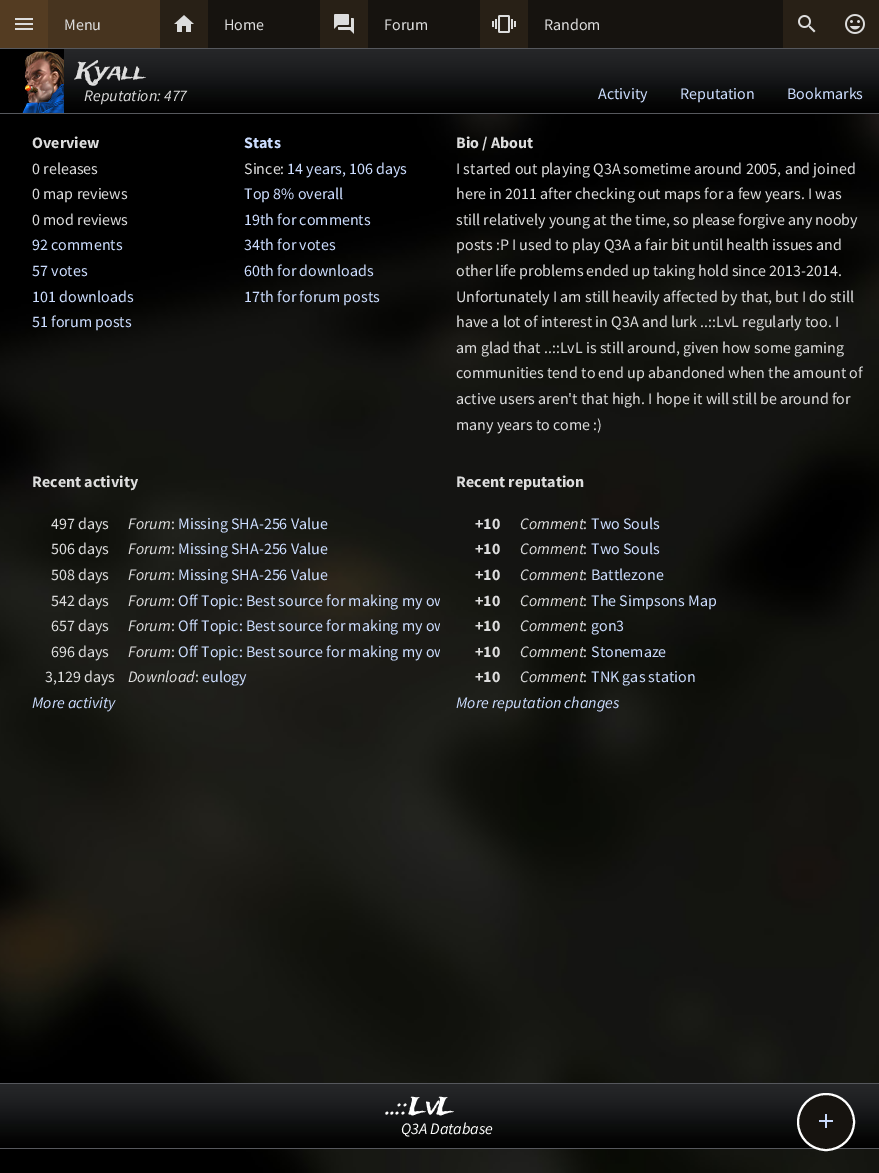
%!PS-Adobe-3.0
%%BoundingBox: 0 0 879 1173
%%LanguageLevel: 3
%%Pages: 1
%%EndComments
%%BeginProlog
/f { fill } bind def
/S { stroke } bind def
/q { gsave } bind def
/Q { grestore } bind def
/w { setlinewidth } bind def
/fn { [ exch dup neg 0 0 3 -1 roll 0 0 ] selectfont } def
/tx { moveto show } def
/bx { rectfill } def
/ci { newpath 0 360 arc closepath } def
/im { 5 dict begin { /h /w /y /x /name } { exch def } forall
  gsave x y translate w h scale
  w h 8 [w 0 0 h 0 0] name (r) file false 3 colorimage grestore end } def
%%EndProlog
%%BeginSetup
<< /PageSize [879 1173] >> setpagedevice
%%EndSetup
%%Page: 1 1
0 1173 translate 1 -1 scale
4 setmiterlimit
1 setgray
0 0 879 1173 bx
0.086 0.075 0.059 setrgbcolor
208 0 575 48 bx
0.329 0.235 0.133 setrgbcolor
0 0 48 48 bx
(image0.raw) 15 18 18 12 im
0.278 0.204 0.122 setrgbcolor
48 0 112 48 bx
/SourceSansPro-Regular 16 fn
0.867 setgray
(Menu) 64 30 tx
0.157 0.125 0.086 setrgbcolor
160 0 48 48 bx
(image1.raw) 174 15 20 17 im
0.867 setgray
(Home) 224 30 tx
0.157 0.125 0.086 setrgbcolor
320 0 48 48 bx
(image2.raw) 334 14 20 20 im
0.867 setgray
(Forum) 384 30 tx
0.157 0.125 0.086 setrgbcolor
480 0 48 48 bx
(image3.raw) 492 15 24 18 im
0.867 setgray
(Random) 544 30 tx
0.157 0.125 0.086 setrgbcolor
783 0 96 48 bx
(image4.raw) 798 15 18 18 im
(image5.raw) 845 14 20 20 im
(image6.raw) 64 49 815 64 im
0.337 0.345 0.365 setrgbcolor
0 48 879 1 bx
0 113 879 1 bx
(image7.raw) 0 49 64 64 im
/TradeWinds-Regular 24 fn
0.867 setgray
(Kyall) 76 79 tx
/SourceSansPro-Italic 16 fn
(Reputation: 477) 84 101 tx
/SourceSansPro-Regular 16 fn
0.8 0.867 1 setrgbcolor
(Activity) 598 99 tx
(Reputation) 680 99 tx
(Bookmarks) 787 99 tx
(image8.raw) 0 114 879 1059 im
/SourceSansPro-Bold 16 fn
0.867 setgray
(Overview) 32 148 tx
/SourceSansPro-Regular 16 fn
(0 releases) 32 174 tx
(0 map reviews) 32 199 tx
(0 mod reviews) 32 225 tx
0.8 0.867 1 setrgbcolor
(92 comments) 32 250 tx
(57 votes) 32 276 tx
(101 downloads) 32 302 tx
(51 forum posts) 32 327 tx
/SourceSansPro-Bold 16 fn
(Stats) 244 148 tx
/SourceSansPro-Regular 16 fn
0.867 setgray
(Since:) 244 174 tx
0.8 0.867 1 setrgbcolor
(14 years, 106 days) 287 174 tx
(Top 8% overall) 244 199 tx
(19th for comments) 244 225 tx
(34th for votes) 244 250 tx
(60th for downloads) 244 276 tx
(17th for forum posts) 244 302 tx
/SourceSansPro-Bold 16 fn
0.867 setgray
(Bio / About) 456 148 tx
/SourceSansPro-Regular 16 fn
(I started out playing Q3A sometime around 2005, and joined) 456 174 tx
(here in 2011 after checking out maps for a few years. I was) 456 199 tx
(still relatively young at the time, so please forgive any nooby) 456 225 tx
(posts :P I used to play Q3A a fair bit until health issues and) 456 250 tx
(other life problems ended up taking hold since 2013-2014.) 456 276 tx
(Unfortunately I am still heavily affected by that, but I do still) 456 302 tx
(have a lot of interest in Q3A and lurk ..::LvL regularly too. I) 456 327 tx
(am glad that ..::LvL is still around, given how some gaming) 456 353 tx
(communities tend to end up abandoned when the amount of) 456 378 tx
(active users aren't that high. I hope it will still be around for) 456 404 tx
(many years to come :\)) 456 430 tx
/SourceSansPro-Bold 16 fn
(Recent activity) 32 487 tx
/SourceSansPro-Regular 16 fn
(497 days) 51 529 tx
/SourceSansPro-Italic 16 fn
(Forum) 128 529 tx
/SourceSansPro-Regular 16 fn
(:) 171 529 tx
0.8 0.867 1 setrgbcolor
(Missing SHA-256 Value) 178 529 tx
0.867 setgray
(506 days) 51 554 tx
/SourceSansPro-Italic 16 fn
(Forum) 128 554 tx
/SourceSansPro-Regular 16 fn
(:) 171 554 tx
0.8 0.867 1 setrgbcolor
(Missing SHA-256 Value) 178 554 tx
0.867 setgray
(508 days) 51 580 tx
/SourceSansPro-Italic 16 fn
(Forum) 128 580 tx
/SourceSansPro-Regular 16 fn
(:) 171 580 tx
0.8 0.867 1 setrgbcolor
(Missing SHA-256 Value) 178 580 tx
0.867 setgray
(542 days) 51 606 tx
/SourceSansPro-Italic 16 fn
(Forum) 128 606 tx
/SourceSansPro-Regular 16 fn
(:) 171 606 tx
q
16 453 424 278 rectclip
0.8 0.867 1 setrgbcolor
(Off Topic: Best source for making my ow) 178 606 tx
Q
(657 days) 51 631 tx
/SourceSansPro-Italic 16 fn
(Forum) 128 631 tx
/SourceSansPro-Regular 16 fn
(:) 171 631 tx
q
16 453 424 278 rectclip
0.8 0.867 1 setrgbcolor
(Off Topic: Best source for making my ow) 178 631 tx
Q
(696 days) 51 657 tx
/SourceSansPro-Italic 16 fn
(Forum) 128 657 tx
/SourceSansPro-Regular 16 fn
(:) 171 657 tx
q
16 453 424 278 rectclip
0.8 0.867 1 setrgbcolor
(Off Topic: Best source for making my ow) 178 657 tx
Q
(3,129 days) 45 682 tx
/SourceSansPro-Italic 16 fn
(Download) 128 682 tx
/SourceSansPro-Regular 16 fn
(:) 195 682 tx
0.8 0.867 1 setrgbcolor
(eulogy) 202 682 tx
/SourceSansPro-Italic 16 fn
(More activity) 32 708 tx
/SourceSansPro-Bold 16 fn
0.867 setgray
(Recent reputation) 456 487 tx
(+10) 475 529 tx
/SourceSansPro-Italic 16 fn
(Comment) 520 529 tx
/SourceSansPro-Regular 16 fn
(:) 583 529 tx
0.8 0.867 1 setrgbcolor
(Two Souls) 591 529 tx
/SourceSansPro-Bold 16 fn
0.867 setgray
(+10) 475 554 tx
/SourceSansPro-Italic 16 fn
(Comment) 520 554 tx
/SourceSansPro-Regular 16 fn
(:) 583 554 tx
0.8 0.867 1 setrgbcolor
(Two Souls) 591 554 tx
/SourceSansPro-Bold 16 fn
0.867 setgray
(+10) 475 580 tx
/SourceSansPro-Italic 16 fn
(Comment) 520 580 tx
/SourceSansPro-Regular 16 fn
(:) 583 580 tx
0.8 0.867 1 setrgbcolor
(Battlezone) 591 580 tx
/SourceSansPro-Bold 16 fn
0.867 setgray
(+10) 475 606 tx
/SourceSansPro-Italic 16 fn
(Comment) 520 606 tx
/SourceSansPro-Regular 16 fn
(:) 583 606 tx
0.8 0.867 1 setrgbcolor
(The Simpsons Map) 591 606 tx
/SourceSansPro-Bold 16 fn
0.867 setgray
(+10) 475 631 tx
/SourceSansPro-Italic 16 fn
(Comment) 520 631 tx
/SourceSansPro-Regular 16 fn
(:) 583 631 tx
0.8 0.867 1 setrgbcolor
(gon3) 591 631 tx
/SourceSansPro-Bold 16 fn
0.867 setgray
(+10) 475 657 tx
/SourceSansPro-Italic 16 fn
(Comment) 520 657 tx
/SourceSansPro-Regular 16 fn
(:) 583 657 tx
0.8 0.867 1 setrgbcolor
(Stonemaze) 591 657 tx
/SourceSansPro-Bold 16 fn
0.867 setgray
(+10) 475 682 tx
/SourceSansPro-Italic 16 fn
(Comment) 520 682 tx
/SourceSansPro-Regular 16 fn
(:) 583 682 tx
0.8 0.867 1 setrgbcolor
(TNK gas station) 591 682 tx
/SourceSansPro-Italic 16 fn
(More reputation changes) 456 708 tx
(image10.raw) 0 1084 879 64 im
0.337 0.345 0.365 setrgbcolor
0 1148 879 1 bx
0.086 0.075 0.059 setrgbcolor
826 1122 28 ci q f Q
1 setgray
2 w
S
(image9.raw) 819 1114 14 14 im
0.337 0.345 0.365 setrgbcolor
0 1083 879 1 bx
/TradeWinds-Regular 24 fn
1 setgray
(..::LvL) 387 1114 tx
/SourceSansPro-Italic 16 fn
(Q3A Database) 401 1134 tx
showpage
%%EOF
